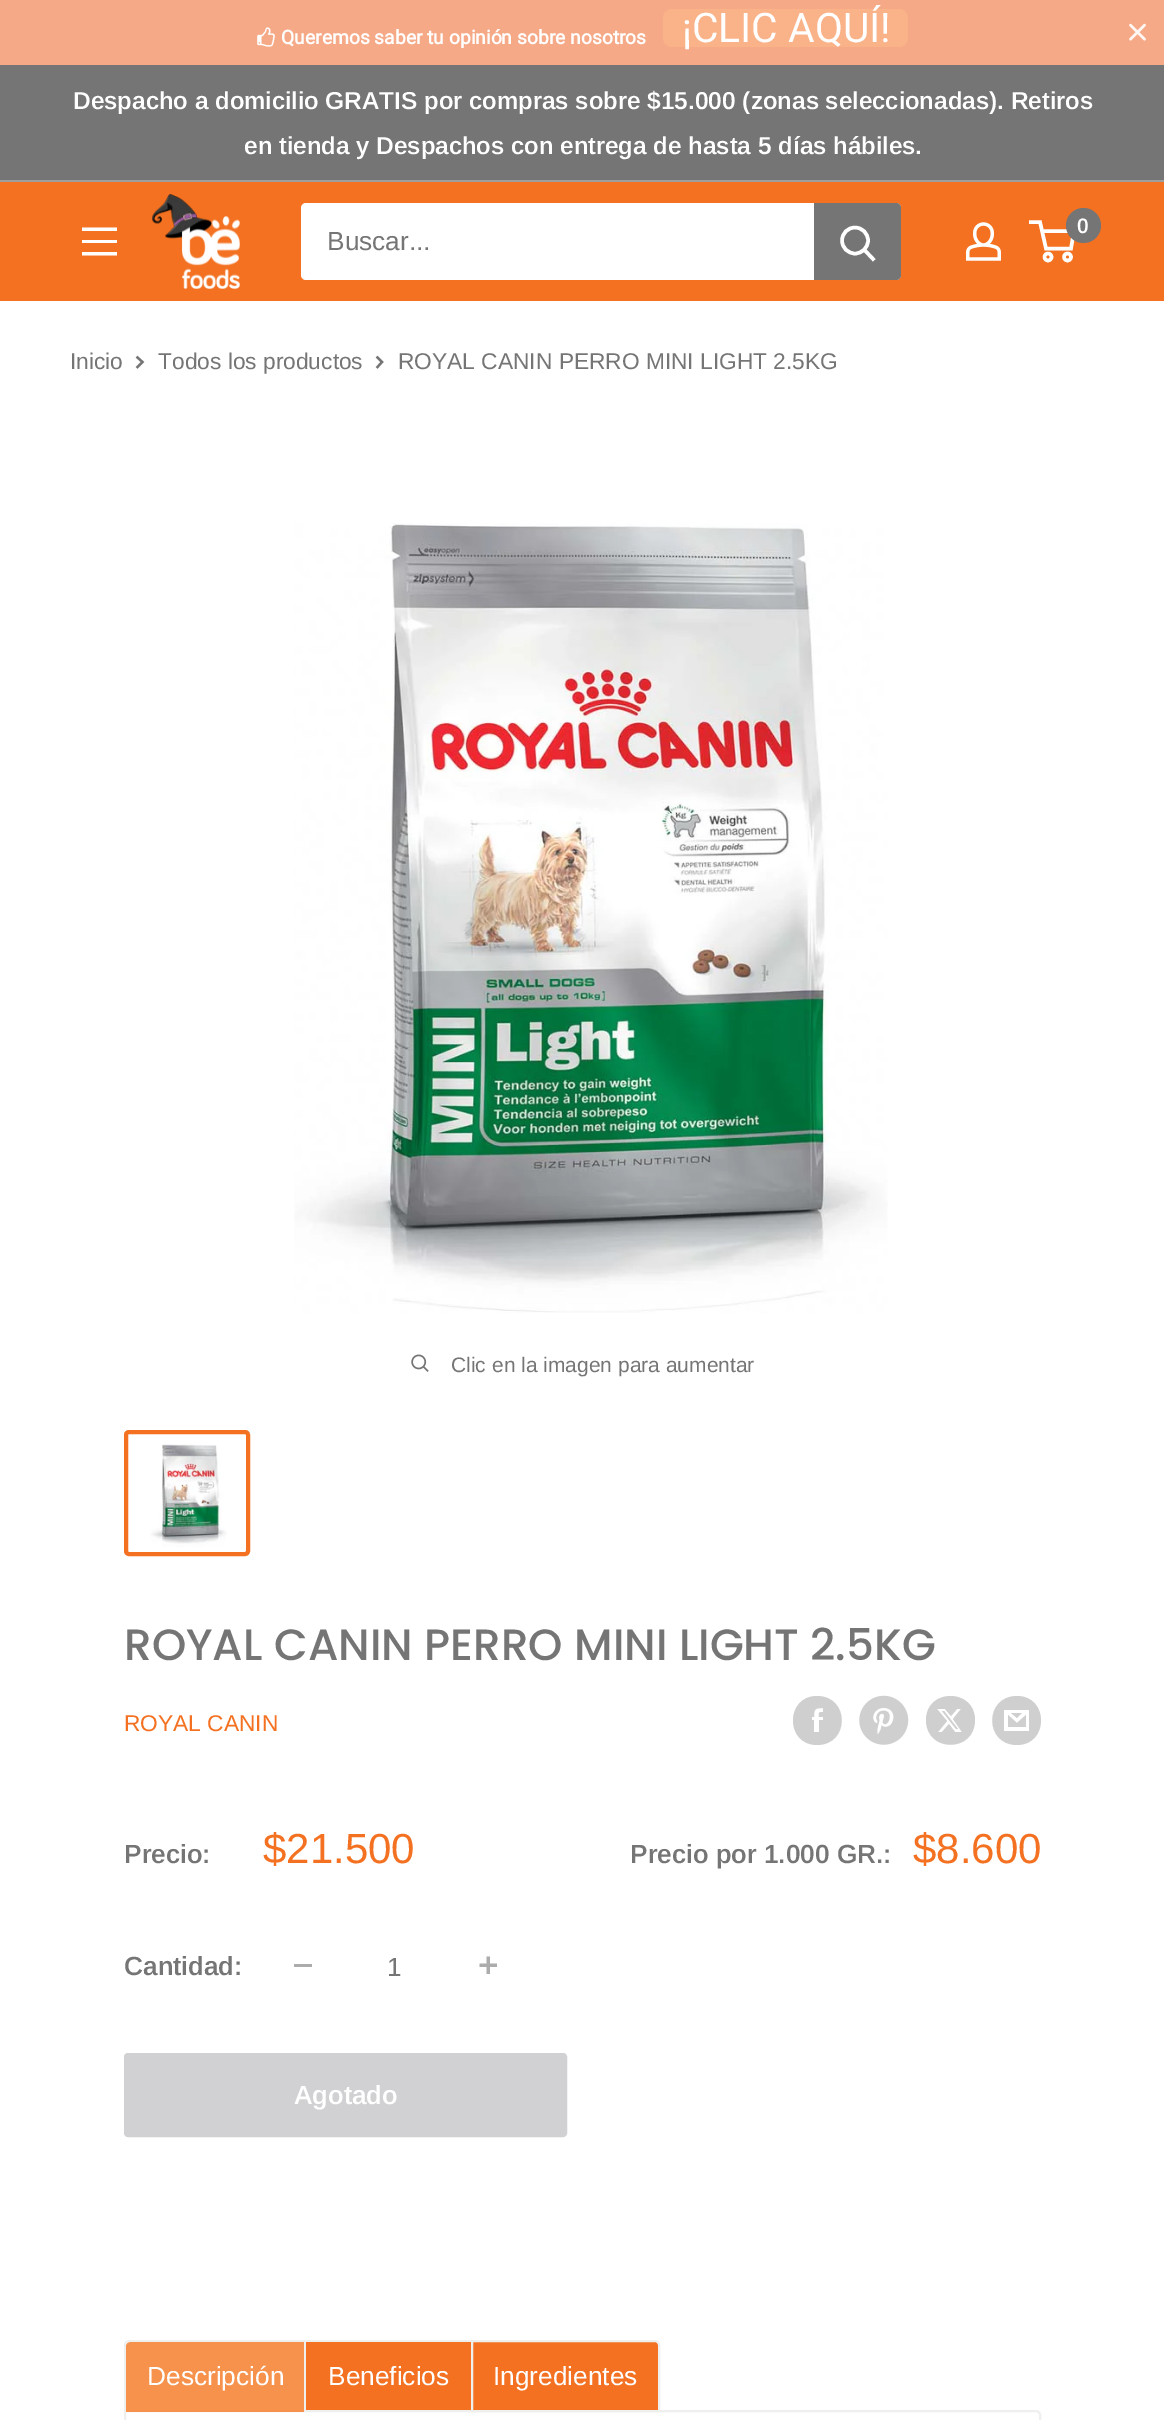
%!PS-Adobe-3.0
%%BoundingBox: 0 0 1164 2420
%%LanguageLevel: 3
%%Pages: 1
%%EndComments
%%BeginProlog
/m { moveto } bind def
/l { lineto } bind def
/c { curveto } bind def
/h { closepath } bind def
/f { fill } bind def
/S { stroke } bind def
/q { gsave } bind def
/Q { grestore } bind def
/w { setlinewidth } bind def
/fn { [ exch dup neg 0 0 3 -1 roll 0 0 ] selectfont } def
/tx { moveto show } def
/bx { rectfill } def
/ci { newpath 0 360 arc closepath } def
/rr { 5 dict begin { /r /h /w /y /x } { exch def } forall
  x r add y moveto x w add y 2 copy h add r arct x w add y h add x 1 index r arct
  x y h add x y r arct x y 2 copy exch w add exch r arct closepath end } def
/im { 5 dict begin { /h /w /y /x /name } { exch def } forall
  gsave x y translate w h scale
  w h 8 [w 0 0 h 0 0] name (r) file false 3 colorimage grestore end } def
%%EndProlog
%%BeginSetup
<< /PageSize [1164 2420] >> setpagedevice
%%EndSetup
%%Page: 1 1
0 2420 translate 1 -1 scale
4 setmiterlimit
1 setgray
0 0 1164 2420 bx
0.965 0.663 0.529 setrgbcolor
0 0 1164 65 bx
(image0.raw) 257 27 18 20 im
/Roboto-Bold 19.25 fn
1 setgray
(Queremos saber tu opinión sobre nosotros) 281 44 tx
0.98 0.698 0.537 setrgbcolor
663 9 245 38 9 rr f
/Roboto-Regular 40.75 fn
1 setgray
(¡CLIC AQUÍ!) 682 42 tx
(image1.raw) 1129 23 17 18 im
0.463 0.459 0.463 setrgbcolor
0 65 1164 115 bx
0.624 0.62 0.624 setrgbcolor
0 180 1164 2 bx
/Arimo-SemiBold 24.5 fn
1 setgray
(Despacho a domicilio GRATIS por compras sobre $15.000 \(zonas seleccionadas\). Retiros) 73 109 tx
(en tienda y Despachos con entrega de hasta 5 días hábiles.) 244 154 tx
0.953 0.443 0.129 setrgbcolor
0 182 1164 119 bx
1 setgray
82 252 m 117 252 l 117 255.5 l 82 255.5 l h 82 227.5 m 117 227.5 l 117 231 l 82 231 l h 82 240 m 117 240 l 117 243 l 82 243 l h eofill
(image2.raw) 152 194 88 95 im
301 203 600 77 5 rr f
/Arimo-Regular 26.25 fn
0.463 0.459 0.463 setrgbcolor
(Buscar...) 327 250 tx
814 203 m 896 203 l 899 203 901 205 901 208 c 901 275 l 901 278 899 280 896 280 c 814 280 l h f
1 setgray
3.5 w
2 setlinecap
873 259 m 864.5 250 l S
0 setlinecap
855 240.5 13 ci S
(image3.raw) 966 222 35 39 im
1048 257 3.5 ci S
1067.5 257 3.5 ci S
1042 231 m 1074 231 l 1071 248.5 l 1046 248.5 l 1040 222 l 1029 222 l S
0.463 0.459 0.463 setrgbcolor
1083.5 225.5 17.5 ci f
/Arimo-SemiBold 21 fn
1 setgray
(0) 1077 233 tx
/Arimo-Regular 22.75 fn
0.463 0.459 0.463 setrgbcolor
(Inicio) 70 369 tx
2.3 w
2 setlinecap
137.5 357.5 m 142.5 362 l 137.5 367 l S
(Todos los productos) 158 369 tx
377.5 357.5 m 382 362 l 377.5 367 l S
(ROYAL CANIN PERRO MINI LIGHT 2.5KG) 398 369 tx
(image4.raw) 294 523 594 790 im
(image5.raw) 411 1354 18 18 im
/Arimo-Regular 21 fn
(Clic en la imagen para aumentar) 451 1372 tx
0.953 0.443 0.129 setrgbcolor
4 w
0 setlinecap
126 1432 122 122 3 rr S
(image6.raw) 150 1444 77 103 im
/Poppins-Medium 43.75 fn
0.463 0.459 0.463 setrgbcolor
(ROYAL CANIN PERRO MINI LIGHT 2.5KG) 124 1660 tx
/Arimo-Regular 22.75 fn
0.953 0.443 0.129 setrgbcolor
(ROYAL CANIN) 124 1731 tx
0.812 setgray
817 1745 m 785 1745 785 1696 817 1696 c 850 1696 850 1745 817 1745 c h 823 1717 m 819 1717 l 819 1713 818 1712 823 1712 c 823 1708 l 815 1708 814 1709 814 1717 c 812 1717 l 812 1720 l 814 1720 l 814 1732 l 819 1732 l 819 1720 l 823 1720 l h eofill
(image7.raw) 859 1695 50 50 im
975 1720 m 975 1753 926 1753 926 1720 c 926 1688 975 1688 975 1720 c h 961 1709 m 957 1709 l 951 1716 l 945 1709 l 937 1709 l 947 1721 l 938 1732 l 942 1732 l 949 1724 l 955 1732 l 962 1732 l 953 1719 l h 958 1729 m 956 1729 l 942 1711 l 944 1711 l h eofill
1017 1745 m 984 1745 984 1696 1017 1696 c 1049 1696 1049 1745 1017 1745 c h 1011 1713 m 1022 1713 l 1017 1718 l h 1026 1715 m 1026 1727 l 1008 1727 l 1008 1715 l 1017 1723 l h 1029 1710 m 1004 1710 l 1004 1731 l 1029 1731 l h f
/Arimo-SemiBold 26.25 fn
0.463 0.459 0.463 setrgbcolor
(Precio:) 124 1863 tx
/Arimo-Regular 42 fn
0.953 0.443 0.129 setrgbcolor
($21.500) 263 1863 tx
/Arimo-SemiBold 26.25 fn
0.463 0.459 0.463 setrgbcolor
(Precio por 1.000 GR.:) 630 1863 tx
/Arimo-Regular 42 fn
0.953 0.443 0.129 setrgbcolor
($8.600) 913 1863 tx
/Arimo-SemiBold 26.25 fn
0.463 0.459 0.463 setrgbcolor
(Cantidad:) 124 1975 tx
0.678 0.675 0.678 setrgbcolor
294 1964 18 3 bx
/Arimo-Regular 26.25 fn
0.463 0.459 0.463 setrgbcolor
(1) 387 1976 tx
(image8.raw) 479 1956 18 18 im
0.82 0.82 0.831 setrgbcolor
125 2054 441 82 3 rr q f Q
2 w
S
/Arimo-SemiBold 26.25 fn
1 setgray
(Agotado) 294 2104 tx
0.937 0.937 0.933 setrgbcolor
125 2411 m 1036 2411 l 1038 2411 1040 2413 1040 2415 c 1040 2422 l 1040 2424 1038 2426 1036 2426 c 129 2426 l 127 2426 125 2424 125 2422 c h S
0.969 0.573 0.298 setrgbcolor
130 2342 m 305 2342 l 305 2412 l 126 2412 l 126 2346 l 126 2344 128 2342 130 2342 c h f
0.937 0.937 0.933 setrgbcolor
130 2340 m 306 2340 l 306 2412 l 124 2412 l 124 2345 l 124 2342 127 2340 130 2340 c h 130 2342 m 304 2342 l 304 2412 l 126 2412 l 126 2345 l 126 2343 128 2342 130 2342 c h eofill
/Arimo-Regular 26.25 fn
1 setgray
(Descripción) 147 2385 tx
0.953 0.443 0.129 setrgbcolor
306 2342 165 68 bx
0.937 0.937 0.933 setrgbcolor
306 2340 165 2 bx
1 setgray
(Beneficios) 328 2385 tx
0.953 0.443 0.129 setrgbcolor
472 2341 m 655 2341 l 657 2341 659 2343 659 2345 c 659 2411 l 472 2411 l h q f Q
0.937 0.937 0.933 setrgbcolor
S
1 setgray
(Ingredientes) 493 2385 tx
showpage
%%EOF
